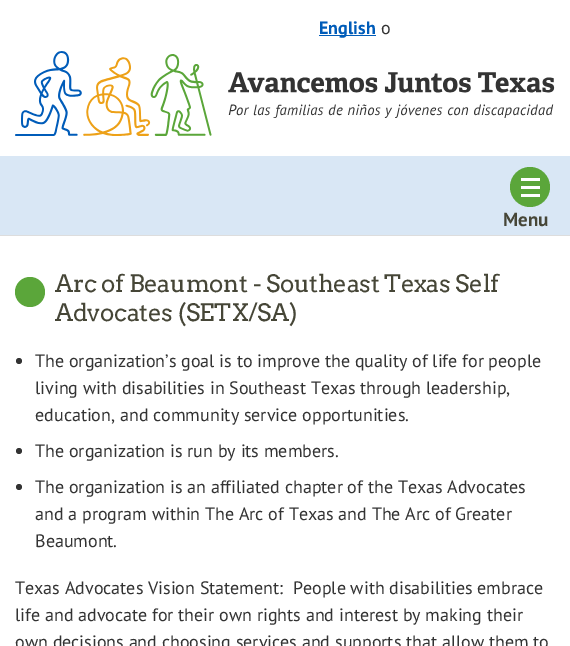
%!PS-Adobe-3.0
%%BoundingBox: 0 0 570 646
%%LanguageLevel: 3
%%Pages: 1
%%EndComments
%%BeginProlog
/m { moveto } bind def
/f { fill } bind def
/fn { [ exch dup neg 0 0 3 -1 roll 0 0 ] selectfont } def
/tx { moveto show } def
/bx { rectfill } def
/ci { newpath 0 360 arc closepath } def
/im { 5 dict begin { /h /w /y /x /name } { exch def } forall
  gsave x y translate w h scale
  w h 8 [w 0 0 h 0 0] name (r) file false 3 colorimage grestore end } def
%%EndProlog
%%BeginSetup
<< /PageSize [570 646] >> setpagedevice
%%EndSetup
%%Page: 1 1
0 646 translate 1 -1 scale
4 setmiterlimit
1 setgray
0 0 570 646 bx
0 0.361 0.725 setrgbcolor
319 35 57 1 bx
/PTSans-Bold 18 fn
(English) 319 34 tx
/PTSans-Regular 18 fn
0.2 setgray
(o) 381 34 tx
(image0.raw) 15 51 540 85 im
0.851 0.906 0.961 setrgbcolor
0 156 570 79 bx
0.357 0.651 0.227 setrgbcolor
530 187 20 ci f
1 setgray
521 194 19 3 bx
521 186 19 3 bx
521 178 19 3 bx
/PTSans-Bold 19 fn
0.275 0.275 0.216 setrgbcolor
(Menu) 503 226 tx
0.867 setgray
0 235 570 1 bx
0.357 0.651 0.227 setrgbcolor
30 292 15 ci f
/Arvo-Regular 24 fn
0.275 0.275 0.216 setrgbcolor
55 292 m -0.35 0 (Arc of Beaumont - Southeast Texas Self) ashow
55 321 m -0.35 0 (Advocates \(SETX/SA\)) ashow
0.2 setgray
19 361 3 ci f
/PTSans-Regular 18 fn
(The organization’s goal is to improve the quality of life for people) 35 367 tx
(living with disabilities in Southeast Texas through leadership,) 35 394 tx
(education, and community service opportunities.) 35 421 tx
19 451 3 ci f
(The organization is run by its members.) 35 457 tx
19 487 3 ci f
(The organization is an affiliated chapter of the Texas Advocates) 35 493 tx
(and a program within The Arc of Texas and The Arc of Greater) 35 520 tx
(Beaumont.) 35 547 tx
(Texas Advocates Vision Statement:  People with disabilities embrace) 15 594 tx
(life and advocate for their own rights and interest by making their) 15 621 tx
(own decisions and choosing services and supports that allow them to) 15 648 tx
showpage
%%EOF
